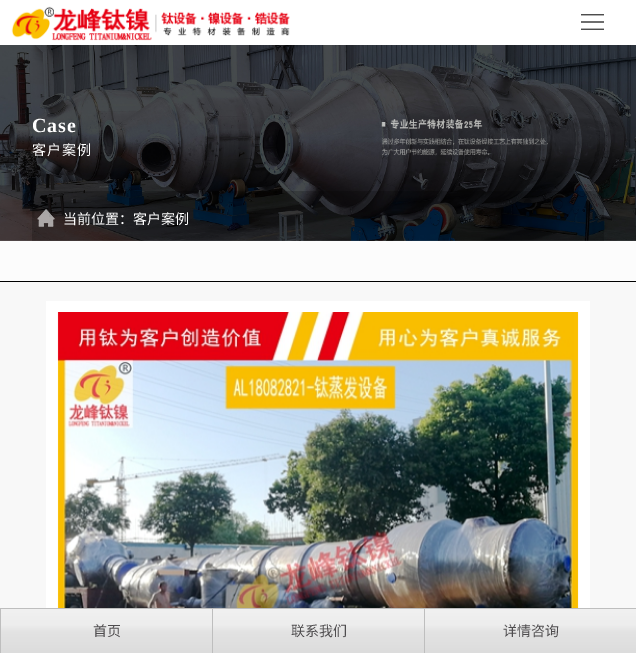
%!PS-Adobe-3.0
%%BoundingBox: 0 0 636 653
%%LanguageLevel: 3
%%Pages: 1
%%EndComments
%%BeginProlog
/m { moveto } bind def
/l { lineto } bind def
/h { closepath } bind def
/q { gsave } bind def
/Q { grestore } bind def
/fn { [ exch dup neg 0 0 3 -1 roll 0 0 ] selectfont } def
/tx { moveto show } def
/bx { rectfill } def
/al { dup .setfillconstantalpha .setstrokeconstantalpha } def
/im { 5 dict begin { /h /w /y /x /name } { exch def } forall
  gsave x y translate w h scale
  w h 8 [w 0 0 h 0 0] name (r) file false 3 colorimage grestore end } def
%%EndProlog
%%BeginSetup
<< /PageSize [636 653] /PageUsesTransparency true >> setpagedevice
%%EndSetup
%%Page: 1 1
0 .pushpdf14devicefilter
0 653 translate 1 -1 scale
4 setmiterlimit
1 setgray
0 0 636 653 bx
(image0.raw) 11 6 279 35 im
(image1.raw) 581 14 23 16 im
(image2.raw) 0 45 636 196 im
/LiberationSerif-Bold 20 fn
32 132 m 1 0 (Case) ashow
/NotoSansCJKSC-Regular 14 fn
32 155 m 1 0 (客户案例) ashow
0.2 al
0 setgray
32 191 572 50 bx
1 al
(image3.raw) 37 209 18 18 im
1 setgray
(当前位置：客户案例) 63 224 tx
0.988 setgray
0 241 636 40 bx
0 setgray
0 281 636 1 bx
0.973 setgray
0 282 636 326 bx
1 setgray
46 301 544 307 bx
(image4.raw) 57 312 522 296 im
0.745 setgray
0 608 636 1 bx
0 608 1 45 bx
q 1 609 m 212 609 l 212 653 l 1 653 l h clip newpath
<< /ShadingType 2 /ColorSpace /DeviceRGB /Coords [1 609 1 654] /Extend [true true] /Function << /FunctionType 3 /Domain [0 1] /Functions [<< /FunctionType 2 /Domain [0 1] /C0 [0.945 0.945 0.945] /C1 [0.929 0.929 0.929] /N 1 >> << /FunctionType 2 /Domain [0 1] /C0 [0.929 0.929 0.929] /C1 [0.89 0.89 0.89] /N 1 >> << /FunctionType 2 /Domain [0 1] /C0 [0.89 0.89 0.89] /C1 [0.863 0.863 0.863] /N 1 >>] /Bounds [0.35 0.5] /Encode [0 1 0 1 0 1] >> >> shfill Q
0.31 0.302 0.31 setrgbcolor
(首页) 93 636 tx
0.745 setgray
212 608 1 45 bx
q 213 609 m 424 609 l 424 653 l 213 653 l h clip newpath
<< /ShadingType 2 /ColorSpace /DeviceRGB /Coords [213 609 213 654] /Extend [true true] /Function << /FunctionType 3 /Domain [0 1] /Functions [<< /FunctionType 2 /Domain [0 1] /C0 [0.945 0.945 0.945] /C1 [0.929 0.929 0.929] /N 1 >> << /FunctionType 2 /Domain [0 1] /C0 [0.929 0.929 0.929] /C1 [0.89 0.89 0.89] /N 1 >> << /FunctionType 2 /Domain [0 1] /C0 [0.89 0.89 0.89] /C1 [0.863 0.863 0.863] /N 1 >>] /Bounds [0.35 0.5] /Encode [0 1 0 1 0 1] >> >> shfill Q
0.31 0.302 0.31 setrgbcolor
(联系我们) 291 636 tx
0.745 setgray
424 608 1 45 bx
q 425 609 m 636 609 l 636 653 l 425 653 l h clip newpath
<< /ShadingType 2 /ColorSpace /DeviceRGB /Coords [425 609 425 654] /Extend [true true] /Function << /FunctionType 3 /Domain [0 1] /Functions [<< /FunctionType 2 /Domain [0 1] /C0 [0.945 0.945 0.945] /C1 [0.929 0.929 0.929] /N 1 >> << /FunctionType 2 /Domain [0 1] /C0 [0.929 0.929 0.929] /C1 [0.89 0.89 0.89] /N 1 >> << /FunctionType 2 /Domain [0 1] /C0 [0.89 0.89 0.89] /C1 [0.863 0.863 0.863] /N 1 >>] /Bounds [0.35 0.5] /Encode [0 1 0 1 0 1] >> >> shfill Q
0.31 0.302 0.31 setrgbcolor
(详情咨询) 503 636 tx
.poppdf14devicefilter showpage
%%EOF
